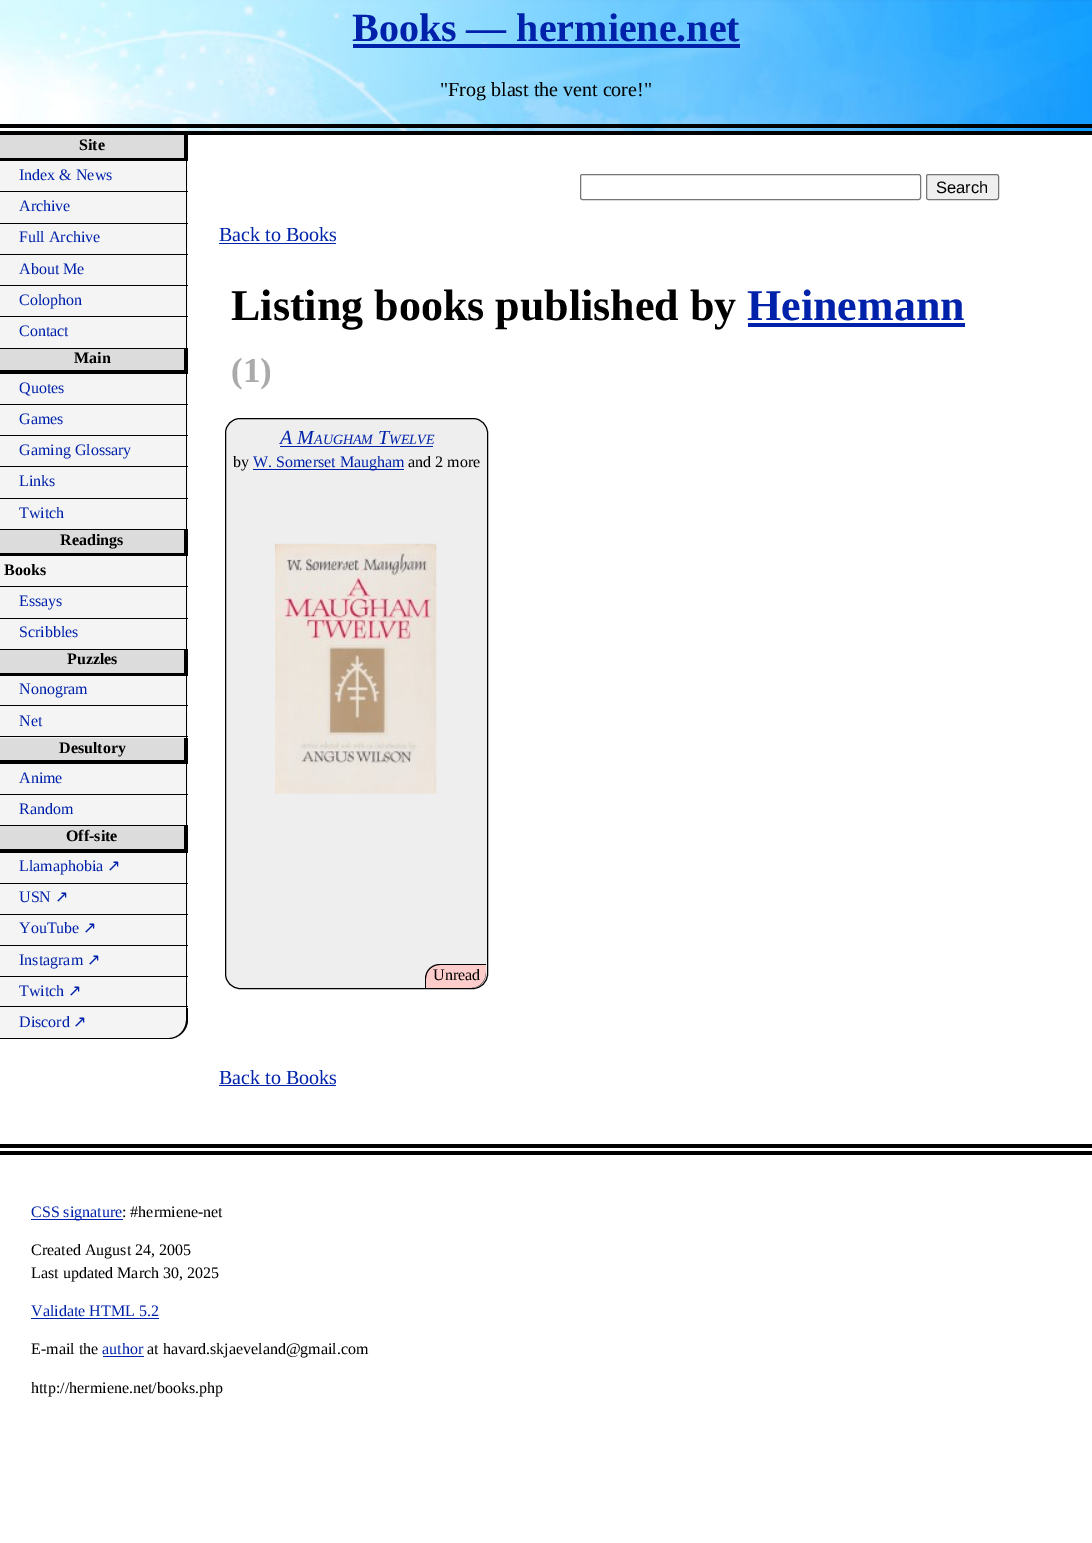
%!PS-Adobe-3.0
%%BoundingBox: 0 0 1092 1543
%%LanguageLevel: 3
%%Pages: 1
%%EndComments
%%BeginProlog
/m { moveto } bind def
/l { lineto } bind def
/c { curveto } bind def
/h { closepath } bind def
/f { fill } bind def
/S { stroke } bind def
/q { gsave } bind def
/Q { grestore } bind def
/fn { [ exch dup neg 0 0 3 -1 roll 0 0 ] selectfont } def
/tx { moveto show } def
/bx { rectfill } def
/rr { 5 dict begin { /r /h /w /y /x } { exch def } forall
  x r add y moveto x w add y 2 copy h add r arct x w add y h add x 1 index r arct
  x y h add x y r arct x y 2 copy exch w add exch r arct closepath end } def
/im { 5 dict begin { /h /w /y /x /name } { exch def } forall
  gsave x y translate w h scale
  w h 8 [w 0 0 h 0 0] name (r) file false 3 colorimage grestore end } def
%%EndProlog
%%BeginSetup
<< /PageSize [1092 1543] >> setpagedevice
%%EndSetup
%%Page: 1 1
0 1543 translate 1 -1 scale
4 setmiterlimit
1 setgray
0 0 1092 1543 bx
(image0.raw) 0 0 1092 131 im
0 setgray
0 124 1092 4 bx
0 131 1092 4 bx
/LiberationSerif-Bold 40 fn
0 0.133 0.667 setrgbcolor
(Books — hermiene.net) 352 41 tx
353 44 387 4 bx
/LiberationSerif-Regular 20 fn
0 setgray
("Frog blast the vent core!") 440 96 tx
0.863 setgray
0 135 184 23 bx
0 setgray
184 135 4 26 bx
0 158 188 3 bx
/LiberationSerif-Bold 16 fn
(Site) 79 150 tx
0.957 setgray
0 161 188 62 bx
0 setgray
186 161 1 63 bx
0 191 188 1 bx
/LiberationSerif-Regular 16 fn
0 0.133 0.667 setrgbcolor
(Index & News) 19 180 tx
0 setgray
0 223 188 1 bx
0 0.133 0.667 setrgbcolor
(Archive) 19 211 tx
0.957 setgray
0 224 188 30 bx
0 setgray
186 224 1 31 bx
0 254 188 1 bx
0 0.133 0.667 setrgbcolor
(Full Archive) 19 242 tx
0.957 setgray
0 255 188 30 bx
0 setgray
186 255 1 31 bx
0 285 188 1 bx
0 0.133 0.667 setrgbcolor
(About Me) 19 274 tx
0.957 setgray
0 286 188 62 bx
0 setgray
186 286 1 63 bx
0 316 188 1 bx
0 0.133 0.667 setrgbcolor
(Colophon) 19 305 tx
0 setgray
0 348 188 1 bx
0 0.133 0.667 setrgbcolor
(Contact) 19 336 tx
0.863 setgray
0 349 184 21 bx
0 setgray
184 349 4 25 bx
0 370 188 4 bx
/LiberationSerif-Bold 16 fn
(Main) 74 363 tx
0.957 setgray
0 374 188 30 bx
0 setgray
186 374 1 31 bx
0 404 188 1 bx
/LiberationSerif-Regular 16 fn
0 0.133 0.667 setrgbcolor
(Quotes) 19 393 tx
0.957 setgray
0 405 188 30 bx
0 setgray
186 405 1 31 bx
0 435 188 1 bx
0 0.133 0.667 setrgbcolor
(Games) 19 424 tx
0.957 setgray
0 436 188 62 bx
0 setgray
186 436 1 63 bx
0 466 188 1 bx
0 0.133 0.667 setrgbcolor
(Gaming Glossary) 19 455 tx
0 setgray
0 498 188 1 bx
0 0.133 0.667 setrgbcolor
(Links) 19 486 tx
0.957 setgray
0 499 188 30 bx
0 setgray
186 499 1 31 bx
0 529 188 1 bx
0 0.133 0.667 setrgbcolor
(Twitch) 19 518 tx
0.863 setgray
0 530 184 23 bx
0 setgray
184 530 4 26 bx
0 553 188 3 bx
/LiberationSerif-Bold 16 fn
(Readings) 60 545 tx
0.957 setgray
0 556 188 62 bx
0 setgray
186 556 1 63 bx
0 586 188 1 bx
(Books) 4 575 tx
0 618 188 1 bx
/LiberationSerif-Regular 16 fn
0 0.133 0.667 setrgbcolor
(Essays) 19 606 tx
0.957 setgray
0 619 188 30 bx
0 setgray
186 619 1 31 bx
0 649 188 1 bx
0 0.133 0.667 setrgbcolor
(Scribbles) 19 637 tx
0.863 setgray
0 650 184 23 bx
0 setgray
184 650 4 26 bx
0 673 188 3 bx
/LiberationSerif-Bold 16 fn
(Puzzles) 67 664 tx
0.957 setgray
0 676 188 29 bx
0 setgray
186 676 1 30 bx
0 705 188 1 bx
/LiberationSerif-Regular 16 fn
0 0.133 0.667 setrgbcolor
(Nonogram) 19 694 tx
0.957 setgray
0 706 188 32 bx
0 setgray
186 706 1 32 bx
0 736 188 1 bx
0 0.133 0.667 setrgbcolor
(Net) 19 726 tx
0.863 setgray
0 738 184 22 bx
0 setgray
184 738 4 26 bx
0 760 188 4 bx
/LiberationSerif-Bold 16 fn
(Desultory) 59 753 tx
0.957 setgray
0 764 188 30 bx
0 setgray
186 764 1 31 bx
0 794 188 1 bx
/LiberationSerif-Regular 16 fn
0 0.133 0.667 setrgbcolor
(Anime) 19 783 tx
0.957 setgray
0 795 188 30 bx
0 setgray
186 795 1 31 bx
0 825 188 1 bx
0 0.133 0.667 setrgbcolor
(Random) 19 814 tx
0.863 setgray
0 826 184 23 bx
0 setgray
184 826 4 27 bx
0 849 188 4 bx
/LiberationSerif-Bold 16 fn
(Off-site) 66 841 tx
0.957 setgray
0 853 188 30 bx
0 setgray
186 853 1 31 bx
0 883 188 1 bx
/LiberationSerif-Regular 16 fn
0 0.133 0.667 setrgbcolor
(Llamaphobia) 19 871 tx
/DejaVuSans-Regular 16 fn
(↗) 107 871 tx
0.957 setgray
0 884 188 30 bx
0 setgray
186 884 1 31 bx
0 914 188 1 bx
/LiberationSerif-Regular 16 fn
0 0.133 0.667 setrgbcolor
(USN) 19 902 tx
/DejaVuSans-Regular 16 fn
(↗) 55 902 tx
0.957 setgray
0 915 188 30 bx
0 setgray
186 915 1 31 bx
0 945 188 1 bx
/LiberationSerif-Regular 16 fn
0 0.133 0.667 setrgbcolor
(YouTube) 19 933 tx
/DejaVuSans-Regular 16 fn
(↗) 83 933 tx
0.957 setgray
0 946 188 62 bx
0 setgray
186 946 1 62 bx
0 976 188 1 bx
/LiberationSerif-Regular 16 fn
0 0.133 0.667 setrgbcolor
(Instagram) 19 965 tx
/DejaVuSans-Regular 16 fn
(↗) 87 965 tx
0 setgray
0 1006 188 1 bx
/LiberationSerif-Regular 16 fn
0 0.133 0.667 setrgbcolor
(Twitch) 19 996 tx
/DejaVuSans-Regular 16 fn
(↗) 68 996 tx
0.957 setgray
0 1008 m 188 1008 l 188 1020 l 188 1030.5 179.5 1039 169 1039 c 0 1039 l h f
0 setgray
0 1008 m 188 1008 l 188 1020 l 188 1030 179 1039 169 1039 c 0 1039 l h 0 1008 m 186 1008 l 186 1020 l 186 1030 178 1038 169 1038 c 0 1038 l h eofill
/LiberationSerif-Regular 16 fn
0 0.133 0.667 setrgbcolor
(Discord) 19 1027 tx
/DejaVuSans-Regular 16 fn
(↗) 73 1027 tx
0.463 setgray
580.5 174.5 340 25 2 rr S
0.937 setgray
926.5 174.5 72 25 2 rr q f Q
0.463 setgray
S
/LiberationSans-Regular 16.5 fn
0 setgray
(Search) 936 193 tx
/LiberationSerif-Regular 20 fn
0 0.133 0.667 setrgbcolor
(Back to Books) 219 241 tx
219 243 117 1 bx
/LiberationSerif-Bold 44 fn
0 setgray
(Listing books published by) 231 320 tx
0 0.133 0.667 setrgbcolor
(Heinemann) 747 320 tx
748 323 217 4 bx
/LiberationSerif-Bold 35 fn
0.667 setgray
(\(1\)) 231 382 tx
0.933 setgray
225.5 418.5 262 570 14.5 rr q f Q
0 setgray
S
/LiberationSerif-Italic 20 fn
0 0.133 0.667 setrgbcolor
(A M) 280 444 tx
/LiberationSerif-Italic 14 fn
(AUGHAM) 314 444 tx
280 446 153 1 bx
/LiberationSerif-Italic 20 fn
(T) 378 444 tx
/LiberationSerif-Italic 14 fn
(WELVE) 389 444 tx
/LiberationSerif-Regular 16 fn
0 setgray
(by) 233 467 tx
0 0.133 0.667 setrgbcolor
253 469 151 1 bx
(W. Somerset Maugham) 253 467 tx
0 setgray
(and 2 more) 408 467 tx
(image1.raw) 275 543 162 251 im
1 0.8 0.8 setrgbcolor
440 964 m 486 964 l 486 973 l 486 981.5 479.5 988 471 988 c 425 988 l 425 979 l 425 970.5 431.5 964 440 964 c h f
0 setgray
440 964 m 486 964 l 486 972 l 486 981 480 988 471 988 c 425 988 l 425 979 l 425 970 432 964 440 964 c h 440 965 m 486 965 l 486 972 l 486 981 480 988 471 988 c 426 988 l 426 979 l 426 971 432 965 440 965 c h eofill
(Unread) 433 980 tx
/LiberationSerif-Regular 20 fn
0 0.133 0.667 setrgbcolor
(Back to Books) 219 1084 tx
219 1085 117 1 bx
0 setgray
0 1144 1092 4 bx
0 1151 1092 4 bx
0 0.133 0.667 setrgbcolor
31 1219 92 1 bx
/LiberationSerif-Regular 16 fn
(CSS signature) 31 1217 tx
0 setgray
(: #hermiene-net) 122 1217 tx
(Created August 24, 2005) 31 1255 tx
(Last updated March 30, 2025) 31 1278 tx
0 0.133 0.667 setrgbcolor
(Validate HTML 5.2) 31 1316 tx
31 1318 128 1 bx
0 setgray
(E-mail the) 31 1354 tx
0 0.133 0.667 setrgbcolor
(author) 102 1354 tx
103 1356 41 1 bx
0 setgray
(at havard.skjaeveland@gmail.com) 147 1354 tx
(http://hermiene.net/books.php) 31 1393 tx
showpage
%%EOF
